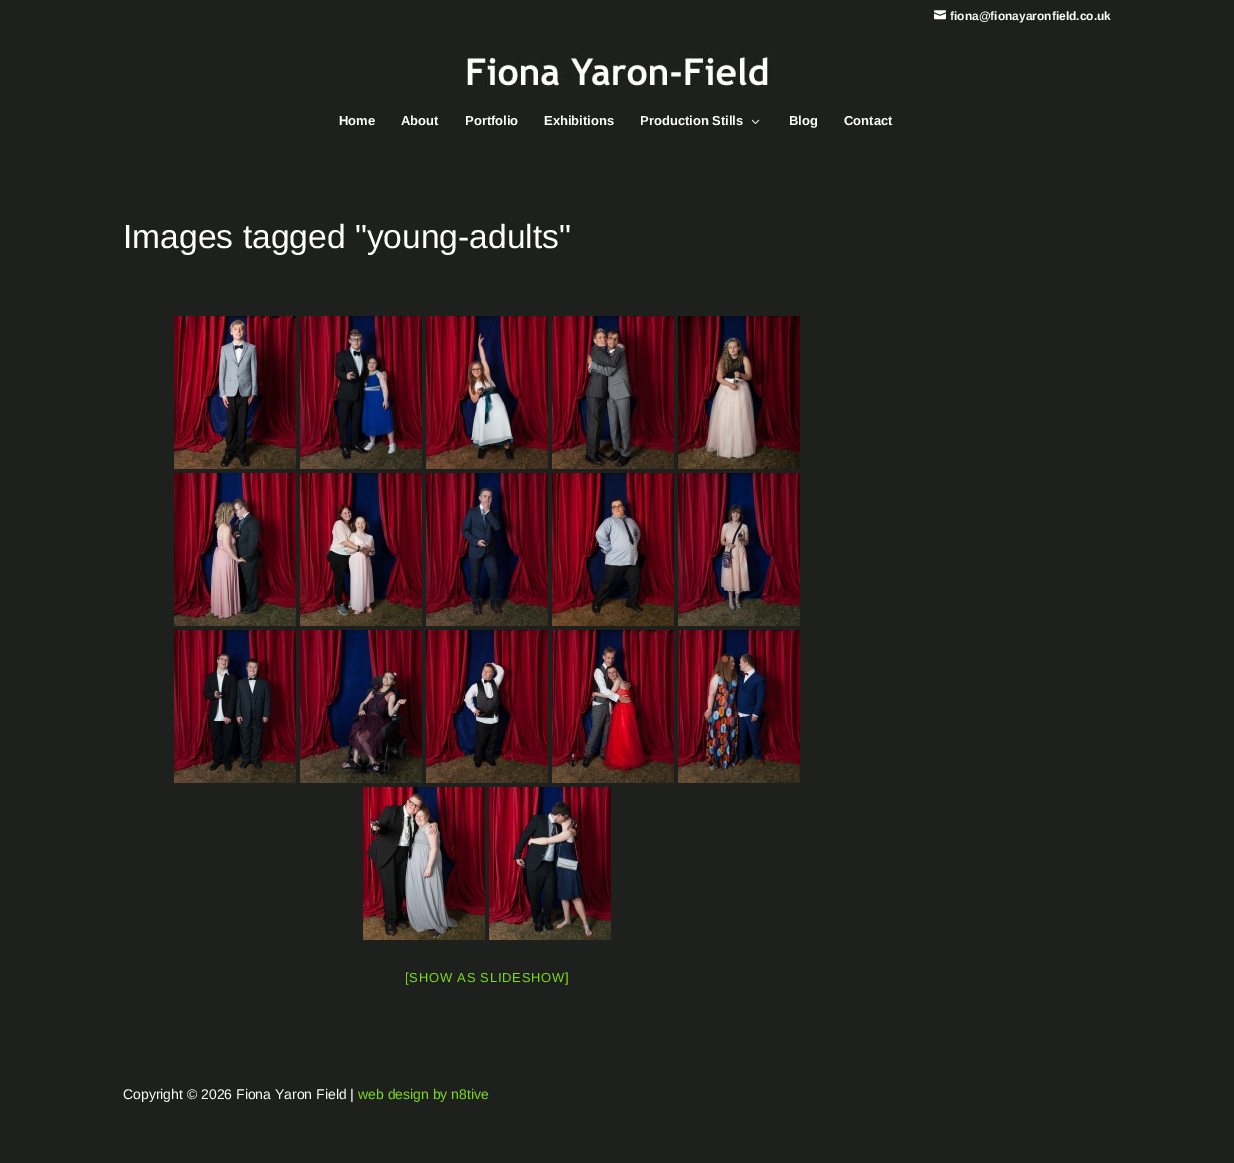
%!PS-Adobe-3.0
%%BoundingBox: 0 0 1234 1163
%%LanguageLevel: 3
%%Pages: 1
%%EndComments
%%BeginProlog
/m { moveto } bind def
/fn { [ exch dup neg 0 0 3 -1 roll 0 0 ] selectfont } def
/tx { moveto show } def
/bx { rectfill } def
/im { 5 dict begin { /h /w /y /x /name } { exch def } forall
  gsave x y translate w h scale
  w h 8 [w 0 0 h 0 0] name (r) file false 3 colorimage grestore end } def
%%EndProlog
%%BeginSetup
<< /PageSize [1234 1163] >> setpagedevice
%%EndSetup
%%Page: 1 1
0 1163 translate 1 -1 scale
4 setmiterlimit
0.118 0.125 0.114 setrgbcolor
0 0 1234 1163 bx
(image0.raw) 934 10 12 10 im
/LiberationSans-Bold 12 fn
1 setgray
(fiona@fionayaronfield.co.uk) 950 20 tx
(image1.raw) 467 53 304 34 im
/LiberationSans-Bold 13 fn
(Home) 339 125 tx
(About) 401 125 tx
(Portfolio) 465 125 tx
(Exhibitions) 544 125 tx
(Production Stills) 640 125 tx
(image2.raw) 751 119 9 5 im
(Blog) 789 125 tx
(Contact) 844 125 tx
/LiberationSans-Regular 33.6 fn
(Images tagged "young-adults") 123 248 tx
(image3.raw) 174 316 122 153 im
(image4.raw) 300 316 122 153 im
(image5.raw) 426 316 122 153 im
(image6.raw) 552 316 122 153 im
(image7.raw) 678 316 122 153 im
(image8.raw) 174 473 122 153 im
(image9.raw) 300 473 122 153 im
(image10.raw) 426 473 122 153 im
(image11.raw) 552 473 122 153 im
(image12.raw) 678 473 122 153 im
(image13.raw) 174 630 122 153 im
(image14.raw) 300 630 122 153 im
(image15.raw) 426 630 122 153 im
(image16.raw) 552 630 122 153 im
(image17.raw) 678 630 122 153 im
(image18.raw) 363 787 122 153 im
(image19.raw) 489 787 122 153 im
/LiberationSans-Regular 13 fn
0.486 0.855 0.141 setrgbcolor
405 982 m 0.75 0 ([SHOW AS SLIDESHOW]) ashow
/LiberationSans-Regular 14 fn
1 setgray
(Copyright © 2026 Fiona Yaron Field |) 123 1099 tx
0.486 0.855 0.141 setrgbcolor
(web design by n8tive) 358 1099 tx
showpage
%%EOF
